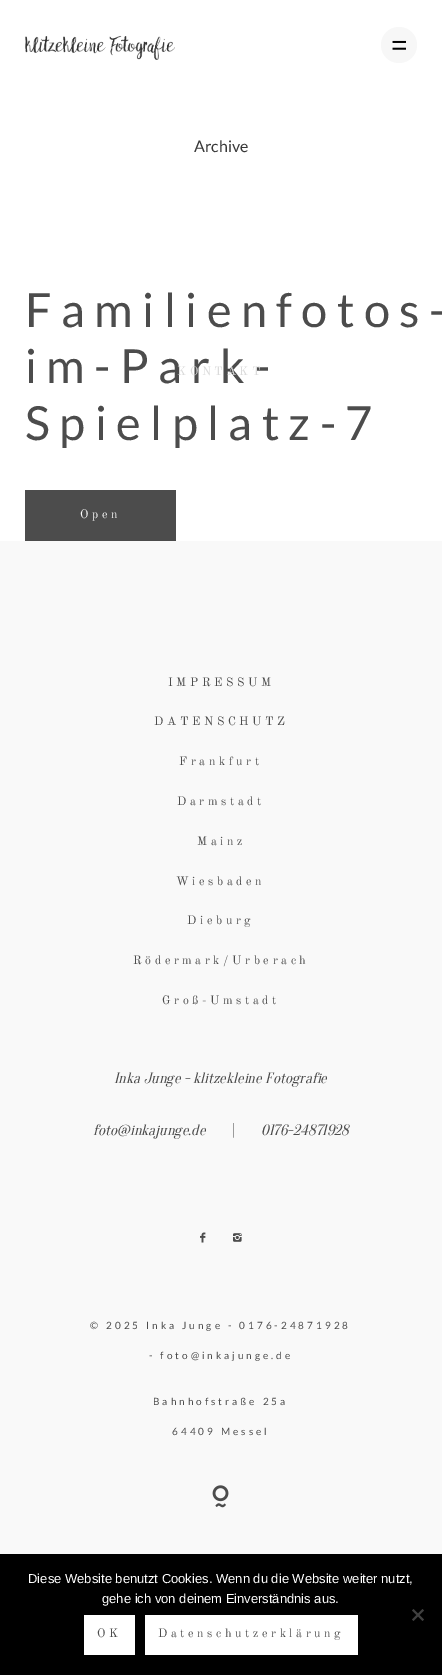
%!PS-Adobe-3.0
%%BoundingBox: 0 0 442 1675
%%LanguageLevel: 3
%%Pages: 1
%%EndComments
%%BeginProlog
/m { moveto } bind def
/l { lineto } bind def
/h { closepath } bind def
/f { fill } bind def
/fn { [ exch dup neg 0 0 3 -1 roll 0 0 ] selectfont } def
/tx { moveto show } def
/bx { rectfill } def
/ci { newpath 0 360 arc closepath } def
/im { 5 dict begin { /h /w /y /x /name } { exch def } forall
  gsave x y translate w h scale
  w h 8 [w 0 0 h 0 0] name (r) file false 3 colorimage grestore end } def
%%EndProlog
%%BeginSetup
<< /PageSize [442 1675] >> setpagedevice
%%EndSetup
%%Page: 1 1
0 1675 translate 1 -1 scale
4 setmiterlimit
1 setgray
0 0 442 1675 bx
(image0.raw) 25 35 150 25 im
0.969 setgray
399 45 18 ci f
(image1.raw) 392 40 14 10 im
/Lato-Regular 16 fn
0.22 setgray
(Archive) 194 152 tx
/Lato-Regular 47 fn
0.298 setgray
25 327 m 9.4 0 (Familienfotos-) ashow
25 383 m 9.4 0 (im-Park-) ashow
25 440 m 9.4 0 (Spielplatz-7) ashow
25 490 151 51 bx
/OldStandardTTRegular-Regular 12 fn
1 setgray
80 518 m 3.6 0 (Open) ashow
0.859 setgray
177 375 m 3.6 0 (KONTAKT) ashow
0.976 setgray
0 541 442 1013 bx
0.298 setgray
168 686 m 3.6 0 (IMPRESSUM) ashow
154 725 m 3.6 0 (DATENSCHUTZ) ashow
179 765 m 3.6 0 (Frankfurt) ashow
177 805 m 3.6 0 (Darmstadt) ashow
197 845 m 3.6 0 (Mainz) ashow
176 885 m 3.6 0 (Wiesbaden) ashow
187 924 m 3.6 0 (Dieburg) ashow
133 964 m 3.6 0 (Rödermark/Urberach) ashow
162 1004 m 3.6 0 (Groß-Umstadt) ashow
/Oranienbaum-Italic 15 fn
(Inka Junge - klitzekleine Fotografie) 114 1083 tx
(foto@inkajunge.de) 93 1135 tx
/PlayfairDisplay-Regular 14 fn
(|) 232 1135 tx
/Oranienbaum-Italic 15 fn
(0176-24871928) 261 1135 tx
(image2.raw) 200 1232 6 11 im
(image3.raw) 233 1233 9 9 im
(image4.raw) 212 1485 17 23 im
/Lato-Regular 10 fn
90 1329 m 3 0 (© 2025 Inka Junge - 0176-24871928) ashow
149 1359 m 3 0 (- foto@inkajunge.de) ashow
153 1405 m 3 0 (Bahnhofstraße 25a) ashow
172 1435 m 3 0 (64409 Messel) ashow
0 setgray
0 1554 442 121 bx
/LiberationSans-Regular 13 fn
1 setgray
(Diese Website benutzt Cookies. Wenn du die Website weiter nutzt,) 28 1583 tx
(gehe ich von deinem Einverständnis aus.) 102 1603 tx
0.251 setgray
422.5 1609 m 424 1610.5 l 413.5 1621 l 412 1619.5 l h f
412 1610.5 m 413.5 1609 l 424 1619.5 l 422.5 1621 l h f
1 setgray
84 1615 51 40 bx
/OldStandardTTRegular-Regular 12 fn
0.298 setgray
97 1637 m 3.6 0 (OK) ashow
1 setgray
145 1615 213 40 bx
0.298 setgray
158 1637 m 3.6 0 (Datenschutzerklärung) ashow
showpage
%%EOF
